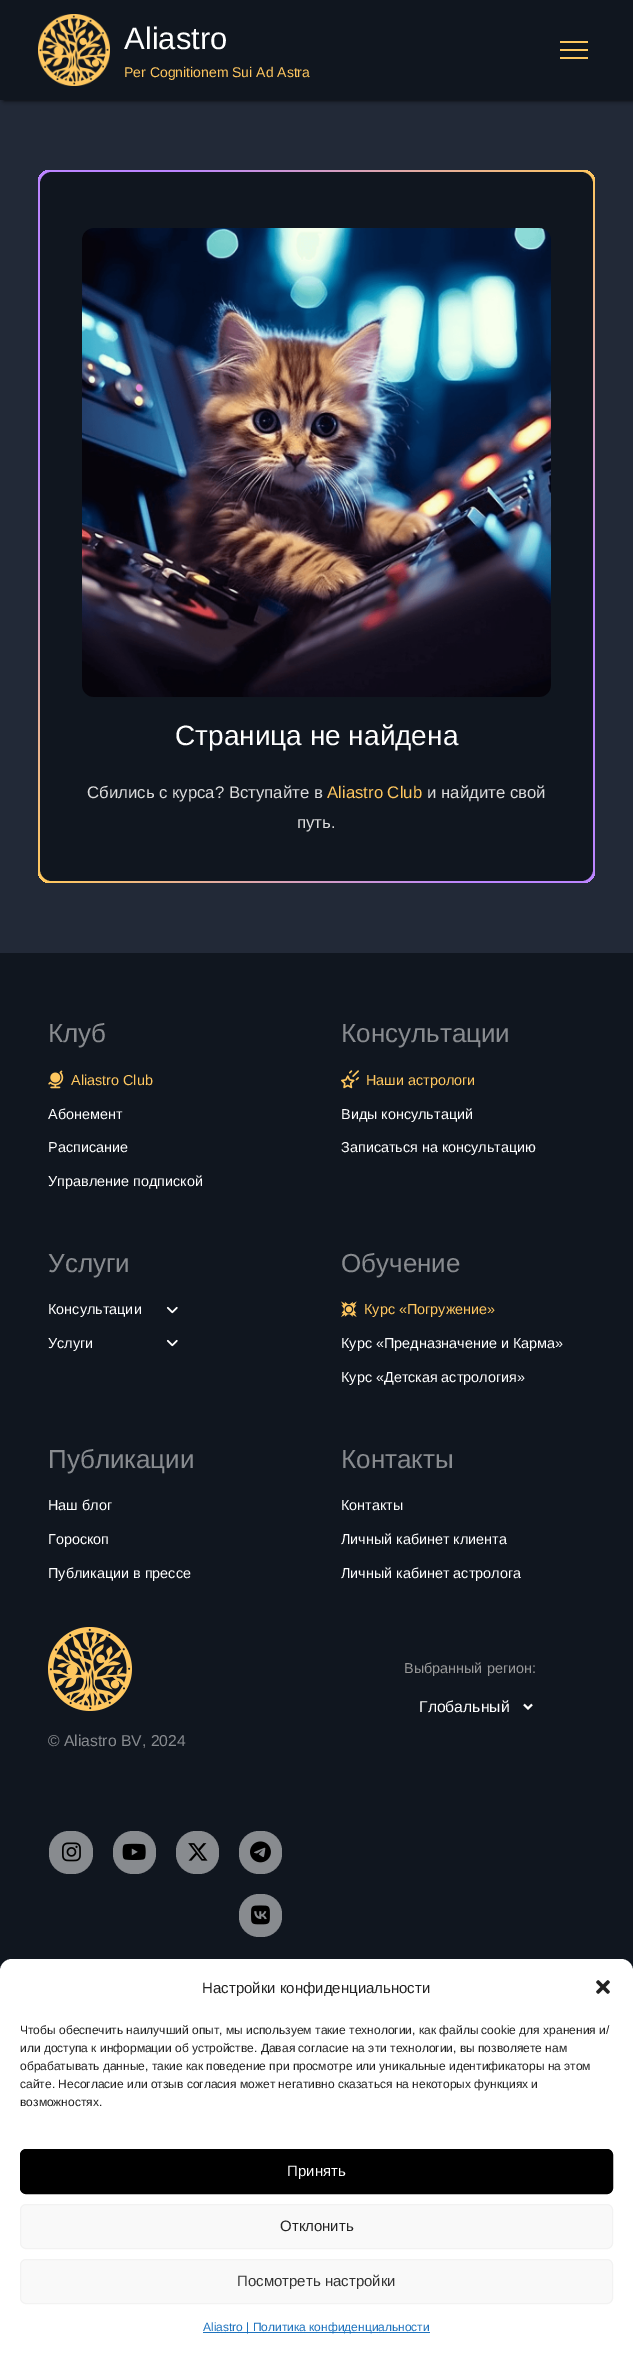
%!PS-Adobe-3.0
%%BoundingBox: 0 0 633 2354
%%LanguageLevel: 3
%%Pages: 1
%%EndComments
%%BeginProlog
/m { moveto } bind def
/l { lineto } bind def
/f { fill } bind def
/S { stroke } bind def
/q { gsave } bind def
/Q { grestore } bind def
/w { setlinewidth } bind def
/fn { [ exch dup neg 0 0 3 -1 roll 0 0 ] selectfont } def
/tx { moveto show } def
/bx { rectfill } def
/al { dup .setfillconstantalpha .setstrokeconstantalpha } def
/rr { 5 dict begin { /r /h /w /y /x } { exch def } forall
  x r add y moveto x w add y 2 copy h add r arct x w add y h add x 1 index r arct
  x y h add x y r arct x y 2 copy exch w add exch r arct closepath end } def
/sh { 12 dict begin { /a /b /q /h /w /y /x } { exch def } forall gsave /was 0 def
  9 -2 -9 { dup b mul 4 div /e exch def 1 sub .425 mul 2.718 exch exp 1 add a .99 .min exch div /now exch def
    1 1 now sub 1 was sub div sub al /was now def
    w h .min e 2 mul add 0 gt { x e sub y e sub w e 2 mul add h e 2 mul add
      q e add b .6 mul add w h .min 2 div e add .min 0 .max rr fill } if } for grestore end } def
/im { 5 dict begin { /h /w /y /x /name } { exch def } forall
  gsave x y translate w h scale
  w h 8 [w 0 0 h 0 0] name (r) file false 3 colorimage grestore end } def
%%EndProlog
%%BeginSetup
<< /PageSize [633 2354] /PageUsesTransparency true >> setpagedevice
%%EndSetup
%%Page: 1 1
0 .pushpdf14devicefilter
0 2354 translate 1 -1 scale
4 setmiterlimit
1 setgray
0 0 633 2354 bx
0.133 0.161 0.216 setrgbcolor
0 100 633 853 bx
0 setgray
4 0 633 100 0 2.5 1 sh
0.063 0.086 0.122 setrgbcolor
0 0 633 100 bx
(image0.raw) 38 14 72 72 im
/LiberationSans-Regular 31 fn
1 setgray
(Aliastro) 124 49 tx
/LiberationSans-Regular 14 fn
1 0.78 0.373 setrgbcolor
(Per Cognitionem Sui Ad Astra) 124 77 tx
560 41 28 2 bx
560 49 28 2 bx
560 57 28 2 bx
q 38 170 557 713 12 rr clip newpath
<< /ShadingType 2 /ColorSpace /DeviceRGB /Coords [-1 844 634 209] /Extend [true true] /Function << /FunctionType 3 /Domain [0 1] /Functions [<< /FunctionType 2 /Domain [0 1] /C0 [1 0.78 0.373] /C1 [1 0.78 0.373] /N 1 >> << /FunctionType 2 /Domain [0 1] /C0 [1 0.78 0.373] /C1 [0.737 0.522 1] /N 1 >> << /FunctionType 2 /Domain [0 1] /C0 [0.737 0.522 1] /C1 [0.737 0.522 1] /N 1 >> << /FunctionType 2 /Domain [0 1] /C0 [0.737 0.522 1] /C1 [1 0.78 0.373] /N 1 >>] /Bounds [0.01 0.34 0.67] /Encode [0 1 0 1 0 1 0 1] >> >> shfill Q
0.063 0.086 0.122 setrgbcolor
40 172 553 709 12 rr f
(image1.raw) 82 228 469 469 im
/LiberationSans-Regular 28 fn
1 setgray
(Страница не найдена) 175 745 tx
/LiberationSans-Regular 16.75 fn
0.863 setgray
(Сбились с курса? Вступайте в) 87 798 tx
1 0.78 0.373 setrgbcolor
(Aliastro Club) 327 798 tx
0.863 setgray
(и найдите свой) 427 798 tx
(путь.) 297 828 tx
0.063 0.086 0.122 setrgbcolor
0 953 633 1018 bx
/LiberationSans-Regular 26 fn
0.533 0.545 0.561 setrgbcolor
(Клуб) 48 1042 tx
(image2.raw) 48 1070 16 19 im
/LiberationSans-Regular 14.4 fn
1 0.78 0.373 setrgbcolor
(Aliastro Club) 71 1085 tx
1 setgray
(Абонемент) 48 1119 tx
(Расписание) 48 1152 tx
(Управление подпиской) 48 1186 tx
/LiberationSans-Regular 26 fn
0.533 0.545 0.561 setrgbcolor
(Консультации) 341 1042 tx
(image3.raw) 341 1070 18 19 im
/LiberationSans-Regular 14.4 fn
1 0.78 0.373 setrgbcolor
(Наши астрологи) 366 1085 tx
1 setgray
(Виды консультаций) 341 1119 tx
(Записаться на консультацию) 341 1152 tx
/LiberationSans-Regular 26 fn
0.533 0.545 0.561 setrgbcolor
(Услуги) 48 1272 tx
/LiberationSans-Regular 14.4 fn
1 setgray
(Консультации) 48 1314 tx
(image4.raw) 166 1306 12 8 im
(Услуги) 48 1348 tx
(image4.raw) 166 1339 12 8 im
/LiberationSans-Regular 26 fn
0.533 0.545 0.561 setrgbcolor
(Обучение) 341 1272 tx
(image5.raw) 341 1301 16 16 im
/LiberationSans-Regular 14.4 fn
1 0.78 0.373 setrgbcolor
(Курс «Погружение») 364 1314 tx
1 setgray
(Курс «Предназначение и Карма») 341 1348 tx
(Курс «Детская астрология») 341 1382 tx
/LiberationSans-Regular 26 fn
0.533 0.545 0.561 setrgbcolor
(Публикации) 48 1468 tx
/LiberationSans-Regular 14.4 fn
1 setgray
(Наш блог) 48 1510 tx
(Гороскоп) 48 1544 tx
(Публикации в прессе) 48 1578 tx
/LiberationSans-Regular 26 fn
0.533 0.545 0.561 setrgbcolor
(Контакты) 341 1468 tx
/LiberationSans-Regular 14.4 fn
1 setgray
(Контакты) 341 1510 tx
(Личный кабинет клиента) 341 1544 tx
(Личный кабинет астролога) 341 1578 tx
0.6 setgray
(Выбранный регион:) 404 1673 tx
1 setgray
2 w
524 1704.5 m 528 1708.5 l 532 1704.5 l S
/LiberationSans-Regular 15.75 fn
(Глобальный) 419 1712 tx
(image6.raw) 48 1627 84 84 im
0.533 0.545 0.561 setrgbcolor
(© Aliastro BV, 2024) 48 1746 tx
49 1831 44 43 20 rr f
(image7.raw) 62 1842 19 20 im
113 1831 43 43 20 rr f
(image8.raw) 122 1843 24 17 im
176 1831 43 43 20 rr f
(image9.raw) 188 1843 20 18 im
239 1831 43 43 20 rr f
(image10.raw) 250 1841 21 22 im
239 1894 43 43 20 rr f
(image11.raw) 251 1905 19 20 im
1 setgray
0 1959 633 395 12 rr f
/LiberationSans-Regular 15 fn
0.133 setgray
(Настройки конфиденциальности) 202 1993 tx
(image12.raw) 596 1980 14 14 im
/LiberationSans-Regular 12 fn
(Чтобы обеспечить наилучший опыт, мы используем такие технологии, как файлы cookie для хранения и/) 20 2034 tx
(или доступа к информации об устройстве. Давая согласие на эти технологии, вы позволяете нам) 20 2052 tx
(обрабатывать данные, такие как поведение при просмотре или уникальные идентификаторы на этом) 20 2070 tx
(сайте. Несогласие или отзыв согласия может негативно сказаться на некоторых функциях и) 20 2088 tx
(возможностях.) 20 2106 tx
0 setgray
20.5 2149.5 592 44 5.5 rr q f Q
1 w
S
/LiberationSans-Regular 15 fn
1 setgray
(Принять) 287 2176 tx
0.976 setgray
20.5 2204.5 592 44 5.5 rr q f Q
0.949 setgray
S
0.133 setgray
(Отклонить) 280 2231 tx
0.976 setgray
20.5 2259.5 592 44 5.5 rr q f Q
0.949 setgray
S
0.2 setgray
(Посмотреть настройки) 237 2286 tx
0.118 0.451 0.745 setrgbcolor
203 2332 227 1 bx
/LiberationSans-Regular 12 fn
(Aliastro | Политика конфиденциальности) 203 2331 tx
.poppdf14devicefilter showpage
%%EOF
